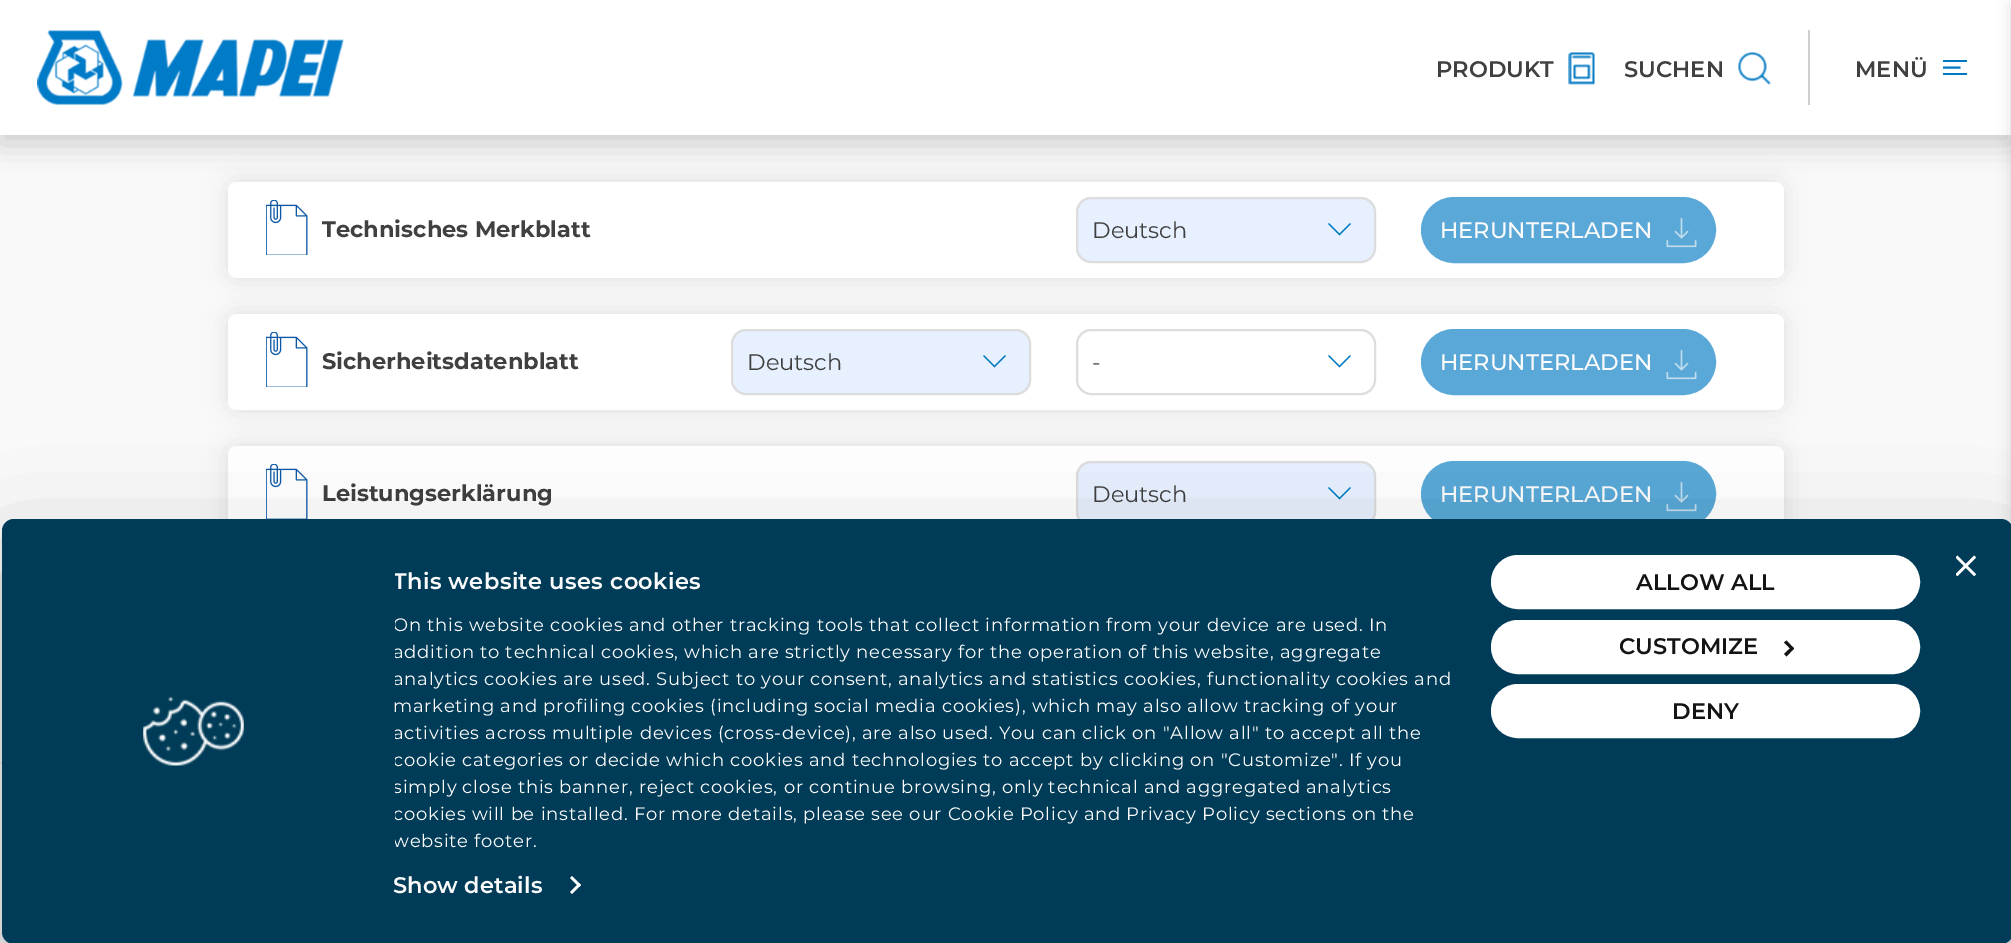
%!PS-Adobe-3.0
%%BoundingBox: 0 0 2011 943
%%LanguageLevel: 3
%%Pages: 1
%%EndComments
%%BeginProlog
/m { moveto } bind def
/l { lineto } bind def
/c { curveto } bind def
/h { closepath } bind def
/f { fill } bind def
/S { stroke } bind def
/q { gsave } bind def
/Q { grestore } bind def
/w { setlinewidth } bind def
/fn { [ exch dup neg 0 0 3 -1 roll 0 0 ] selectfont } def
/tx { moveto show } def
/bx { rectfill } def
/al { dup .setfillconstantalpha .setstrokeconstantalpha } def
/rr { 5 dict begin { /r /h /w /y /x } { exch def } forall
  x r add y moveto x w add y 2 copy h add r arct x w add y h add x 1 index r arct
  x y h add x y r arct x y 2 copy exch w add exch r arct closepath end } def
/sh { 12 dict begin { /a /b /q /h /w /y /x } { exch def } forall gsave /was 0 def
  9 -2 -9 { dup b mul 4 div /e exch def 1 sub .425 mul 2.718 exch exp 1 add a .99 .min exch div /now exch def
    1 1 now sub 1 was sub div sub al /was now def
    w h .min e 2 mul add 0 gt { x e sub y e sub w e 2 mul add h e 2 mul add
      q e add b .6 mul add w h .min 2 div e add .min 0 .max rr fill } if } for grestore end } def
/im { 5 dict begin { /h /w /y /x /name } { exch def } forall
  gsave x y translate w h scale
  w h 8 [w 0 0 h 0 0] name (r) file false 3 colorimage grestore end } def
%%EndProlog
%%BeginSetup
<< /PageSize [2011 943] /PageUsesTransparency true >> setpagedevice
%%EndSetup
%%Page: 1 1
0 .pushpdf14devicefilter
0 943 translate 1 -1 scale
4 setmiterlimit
0.976 setgray
0 0 2011 943 bx
0.867 setgray
228 182 1556 96 9 12 1 sh
1 setgray
228 182 1556 96 9 rr f
0 setgray
0 9 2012 135 0 15 0.18 sh
1 setgray
0 0 2011 135 bx
(image0.raw) 37 30 307 75 im
/Montserrat-SemiBold 22.5 fn
0.251 setgray
(PRODUKT) 1436 77 tx
(image1.raw) 1568 52 27 33 im
(SUCHEN) 1624 77 tx
(image2.raw) 1738 52 33 33 im
0.812 setgray
1808 30 2 75 bx
0.251 setgray
(MENÜ) 1855 77 tx
0 0.475 0.761 setrgbcolor
1943 60 24 2 bx
1943 73 24 2 bx
q
1943 60 24 15 rectclip
2 w
1960.5 67.5 m 1942.5 67.5 l S
Q
0 setgray
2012 5 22 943 0 7.5 0.16 sh
0.925 setgray
0 762 2 2 bx
(image3.raw) 266 200 42 55 im
/Montserrat-Bold 22.5 fn
0.251 setgray
(Technisches Merkblatt) 322 237 tx
0.906 0.941 0.996 setrgbcolor
1076 197 300 66 15 rr f
0 0.475 0.761 setrgbcolor
1.4 w
1 setlinecap
1350 224 m 1339.5 234.5 l 1329 224 l S
0.867 setgray
2 w
0 setlinecap
1077 198 298 64 14 rr S
/Montserrat-Regular 22.5 fn
0.251 setgray
(Deutsch) 1092 238 tx
0.349 0.659 0.843 setrgbcolor
1422 198 293 64 32 rr q f Q
S
/Montserrat-Medium 22.5 fn
0.984 setgray
(HERUNTERLADEN) 1440 238 tx
(image4.raw) 1666 217 31 31 im
0.867 setgray
228 314 1556 96 9 12 1 sh
1 setgray
228 314 1556 96 9 rr f
(image3.raw) 266 332 42 55 im
/Montserrat-Bold 22.5 fn
0.251 setgray
(Sicherheitsdatenblatt) 322 369 tx
0.906 0.941 0.996 setrgbcolor
731 329 300 66 15 rr f
0 0.475 0.761 setrgbcolor
1.4 w
1 setlinecap
1005 356 m 994.5 366.5 l 984 356 l S
0.867 setgray
2 w
0 setlinecap
732 330 298 64 14 rr S
/Montserrat-Regular 22.5 fn
0.251 setgray
(Deutsch) 747 370 tx
0 0.475 0.761 setrgbcolor
1.4 w
1 setlinecap
1350 356 m 1339.5 366.5 l 1329 356 l S
0.867 setgray
2 w
0 setlinecap
1077 330 298 64 14 rr S
0.251 setgray
(-) 1092 370 tx
0.349 0.659 0.843 setrgbcolor
1422 330 293 64 32 rr q f Q
S
/Montserrat-Medium 22.5 fn
0.984 setgray
(HERUNTERLADEN) 1440 370 tx
(image4.raw) 1666 349 31 31 im
0.867 setgray
228 446 1556 96 9 12 1 sh
1 setgray
228 446 1556 96 9 rr f
(image3.raw) 266 464 42 55 im
/Montserrat-Bold 22.5 fn
0.251 setgray
(Leistungserklärung) 322 501 tx
0.906 0.941 0.996 setrgbcolor
1076 461 300 66 15 rr f
0 0.475 0.761 setrgbcolor
1.4 w
1 setlinecap
1350 488 m 1339.5 498.5 l 1329 488 l S
0.867 setgray
2 w
0 setlinecap
1077 462 298 64 14 rr S
/Montserrat-Regular 22.5 fn
0.251 setgray
(Deutsch) 1092 502 tx
0.349 0.659 0.843 setrgbcolor
1422 462 293 64 32 rr q f Q
S
/Montserrat-Medium 22.5 fn
0.984 setgray
(HERUNTERLADEN) 1440 502 tx
(image4.raw) 1666 481 31 31 im
q
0 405 m 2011 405 l 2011 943 l 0 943 l h 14 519 m 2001 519 l 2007.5 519 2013 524.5 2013 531 c 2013 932 l 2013 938.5 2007.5 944 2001 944 c 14 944 l 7.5 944 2 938.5 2 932 c 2 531 l 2 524.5 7.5 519 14 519 c h eoclip newpath
0 setgray
2 564 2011 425 12 52.5 0.3 sh
Q
0 0.235 0.341 setrgbcolor
2 519 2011 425 12 rr f
(image5.raw) 1956 555 21 21 im
q
395 564 1089 290 rectclip
/Montserrat-SemiBold 22.5 fn
0.984 setgray
393 589 m 0.4 0 (This website uses cookies) ashow
/Montserrat-Regular 18 fn
393 631 m 0.75 0 (On this website cookies and other tracking tools that collect information from your device are used. In) ashow
393 658 m 0.75 0 (addition to technical cookies, which are strictly necessary for the operation of this website, aggregate) ashow
393 685 m 0.75 0 (analytics cookies are used. Subject to your consent, analytics and statistics cookies, functionality cookies and) ashow
Q
/Montserrat-Regular 18 fn
0.984 setgray
393 712 m 0.75 0 (marketing and profiling cookies \(including social media cookies\), which may also allow tracking of your) ashow
q
395 564 1089 290 rectclip
393 739 m 0.75 0 (activities across multiple devices \(cross-device\), are also used. You can click on "Allow all" to accept all the) ashow
393 766 m 0.75 0 (cookie categories or decide which cookies and technologies to accept by clicking on "Customize". If you) ashow
393 793 m 0.75 0 (simply close this banner, reject cookies, or continue browsing, only technical and aggregated analytics) ashow
393 820 m 0.75 0 (cookies will be installed. For more details, please see our Cookie Policy and Privacy Policy sections on the) ashow
393 847 m 0.75 0 (website footer.) ashow
Q
/Montserrat-SemiBold 22.5 fn
393 893 m 0.1 0 (Show details) ashow
1 setgray
572 876 m 581 885 l 579 887 l 570 878 l h f
579 883 m 581 885 l 572 894 l 570 892 l h f
1492.5 556.5 426 51 25.5 rr q f Q
3 w
S
0.078 setgray
(ALLOW ALL) 1636 590 tx
1 setgray
1492.5 621.5 426 51 25.5 rr q f Q
S
0.078 setgray
(CUSTOMIZE) 1619 654 tx
1786.5 640.5 m 1794 648.5 l 1792 650.5 l 1784 642.5 l h f
1792 646.5 m 1794 648.5 l 1786.5 656.5 l 1784 654 l h f
1 setgray
1492.5 685.5 426 51 25.5 rr q f Q
S
0.078 setgray
(DENY) 1672 719 tx
(image6.raw) 143 696 101 70 im
.poppdf14devicefilter showpage
%%EOF
